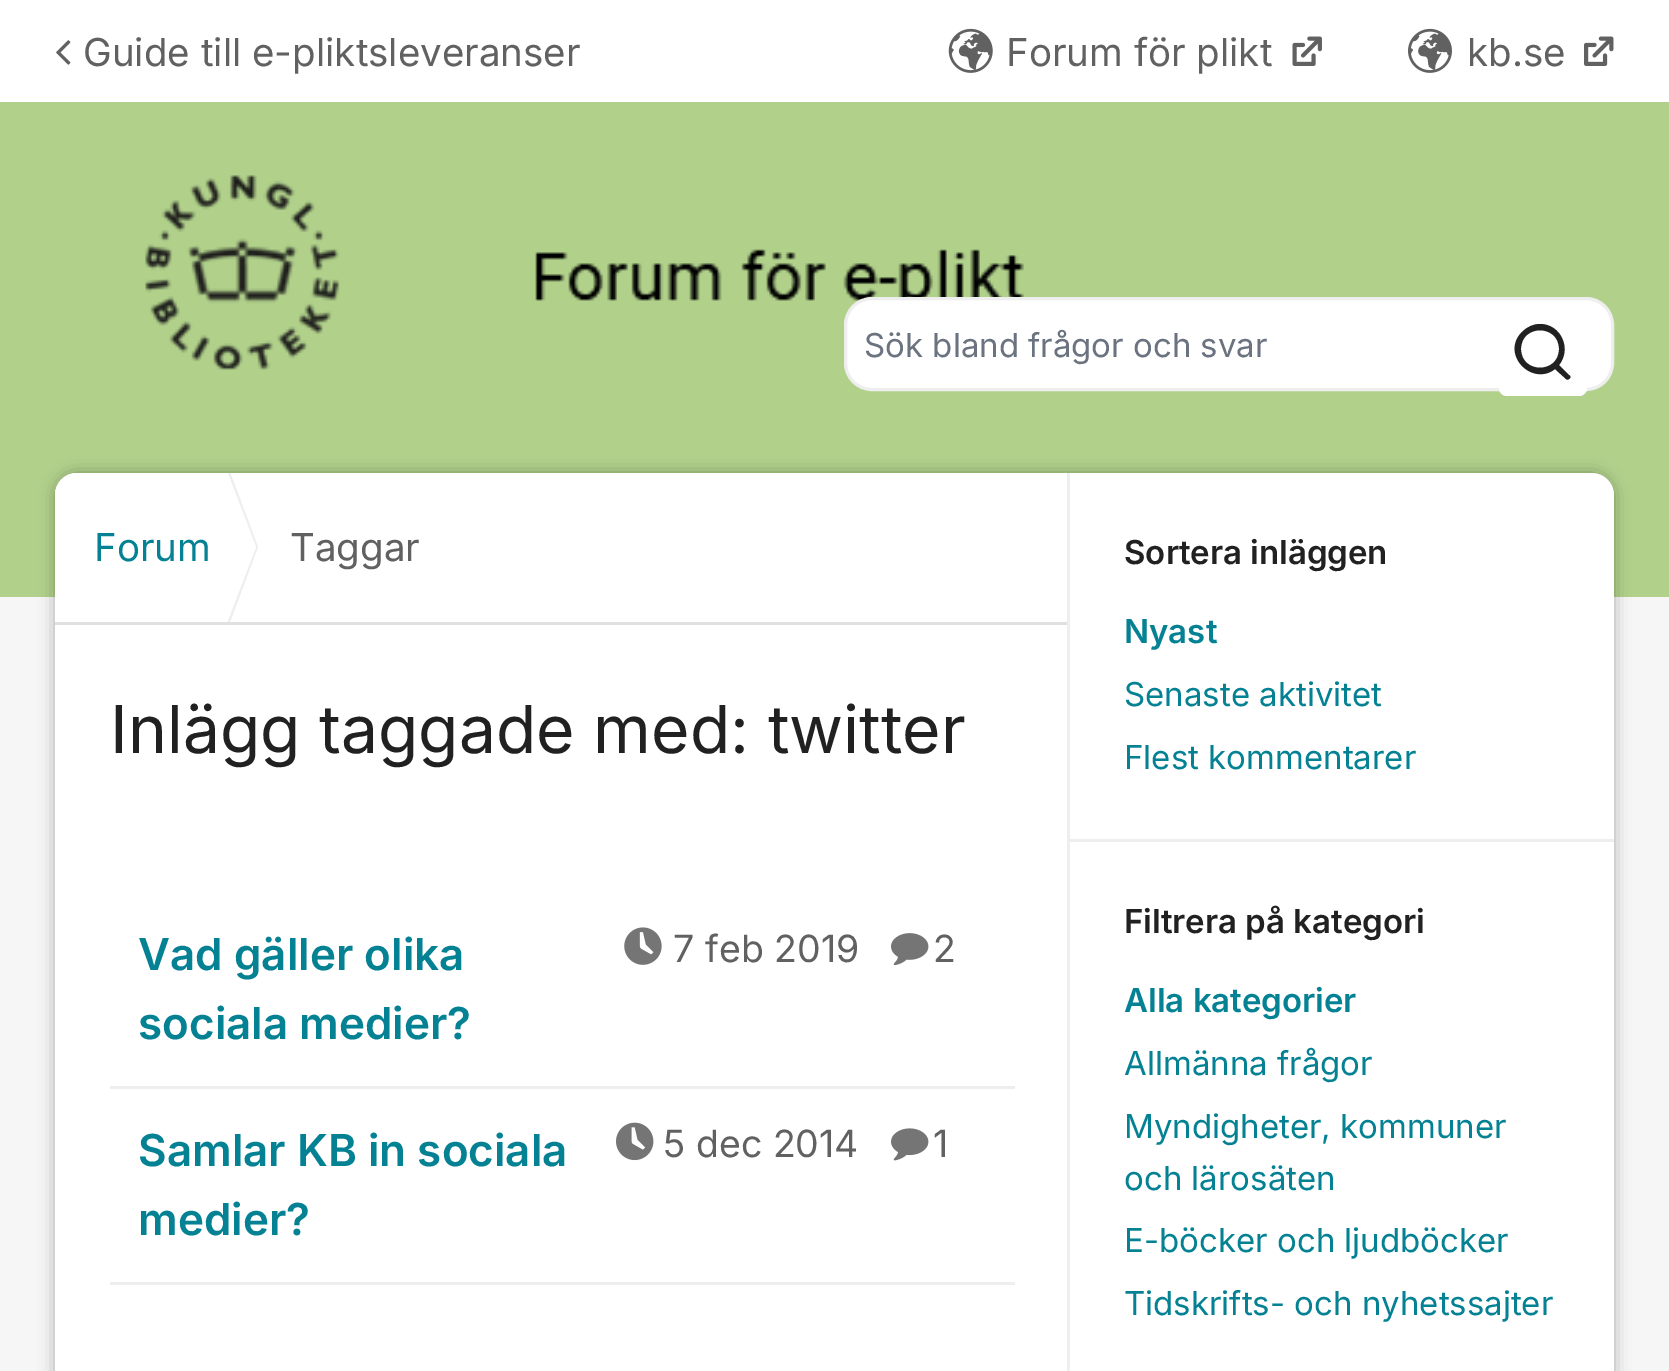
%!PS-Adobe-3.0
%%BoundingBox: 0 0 1669 1371
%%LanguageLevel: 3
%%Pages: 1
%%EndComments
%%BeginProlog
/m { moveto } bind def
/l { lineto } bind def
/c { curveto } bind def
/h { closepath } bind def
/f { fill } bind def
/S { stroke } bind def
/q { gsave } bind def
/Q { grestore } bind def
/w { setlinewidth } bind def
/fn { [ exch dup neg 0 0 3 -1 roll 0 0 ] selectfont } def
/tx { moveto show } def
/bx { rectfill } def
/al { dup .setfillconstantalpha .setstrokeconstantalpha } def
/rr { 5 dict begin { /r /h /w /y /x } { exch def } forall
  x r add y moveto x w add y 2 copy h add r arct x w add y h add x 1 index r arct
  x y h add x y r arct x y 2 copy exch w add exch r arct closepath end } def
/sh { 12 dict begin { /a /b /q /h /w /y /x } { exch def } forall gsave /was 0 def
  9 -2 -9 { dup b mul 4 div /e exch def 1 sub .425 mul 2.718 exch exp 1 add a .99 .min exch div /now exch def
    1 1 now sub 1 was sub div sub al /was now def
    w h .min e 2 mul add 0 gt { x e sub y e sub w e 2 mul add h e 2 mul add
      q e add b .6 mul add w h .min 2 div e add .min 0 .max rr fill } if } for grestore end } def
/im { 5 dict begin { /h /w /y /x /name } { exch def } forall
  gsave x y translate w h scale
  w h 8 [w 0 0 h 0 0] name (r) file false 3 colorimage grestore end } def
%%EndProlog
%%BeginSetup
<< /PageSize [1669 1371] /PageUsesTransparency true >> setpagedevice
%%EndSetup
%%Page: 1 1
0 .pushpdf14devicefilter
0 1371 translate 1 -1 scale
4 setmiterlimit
0.965 setgray
0 0 1669 1371 bx
1 setgray
0 0 1669 102 bx
(image0.raw) 56 40 15 25 im
/Inter-Regular 38.5 fn
0.38 setgray
(Guide till e-pliktsleveranser) 83 66 tx
(image1.raw) 948 28 45 45 im
(Forum för plikt) 1006 66 tx
(image2.raw) 1292 36 30 30 im
(image3.raw) 1408 28 44 45 im
(kb.se) 1467 66 tx
(image4.raw) 1584 36 30 30 im
0.694 0.82 0.545 setrgbcolor
0 102 1669 495 bx
(image5.raw) 145 175 879 195 im
1 setgray
845.5 298.5 767 91 26.5 rr q f Q
0.933 setgray
3 w
S
/Inter-Regular 33 fn
0.42 0.447 0.502 setrgbcolor
(Sök bland frågor och svar) 864 357 tx
1 setgray
1499 308 88 88 8 rr f
0.129 setgray
1521 349 m 1521 324 1559 324 1559 349 c 1559 374 1521 374 1521 349 c h 1540 324 m 1533 324 1527 327 1522 332 c 1500 354 1532 387 1555 369 c 1566 379 l 1567 380 1568 380 1569 379 c 1571 378 1571 376 1569 375 c 1559 365 l 1572 349 1561 324 1540 324 c h eofill
0 setgray
55 473 1559 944 22 8 0.3 sh
1 setgray
77 473 m 1592 473 l 1604 473 1614 483 1614 495 c 1614 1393 l 55 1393 l 55 495 l 55 483 65 473 77 473 c h f
55 473 1015 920 22 rr f
0.878 setgray
55 622 1015 3 bx
q
55 473 1015 149 rectclip
0.933 setgray
217 657 m 217 437 l 258 547 l h f
1 setgray
214 657 m 214 437 l 256 547 l h f
Q
/Inter-Regular 38.5 fn
0.02 0.506 0.58 setrgbcolor
(Forum) 94 561 tx
0.38 setgray
(Taggar) 290 561 tx
/Inter-Regular 66 fn
0.129 setgray
(Inlägg taggade med: twitter) 110 753 tx
0.933 setgray
110 1086 905 3 bx
/Inter-SemiBold 44 fn
0.02 0.506 0.58 setrgbcolor
(Vad gäller olika) 138 970 tx
(image6.raw) 624 927 38 38 im
/Inter-Regular 37.5 fn
0.38 setgray
(7 feb 2019) 673 962 tx
(image7.raw) 891 933 38 33 im
(2) 933 962 tx
/Inter-SemiBold 44 fn
0.02 0.506 0.58 setrgbcolor
(sociala medier?) 138 1039 tx
0.933 setgray
110 1282 905 3 bx
0.02 0.506 0.58 setrgbcolor
(Samlar KB in sociala) 138 1166 tx
(image8.raw) 616 1122 38 39 im
/Inter-Regular 37.5 fn
0.38 setgray
(5 dec 2014) 663 1157 tx
(image9.raw) 891 1128 38 33 im
(1) 933 1157 tx
/Inter-SemiBold 44 fn
0.02 0.506 0.58 setrgbcolor
(medier?) 138 1235 tx
0.933 setgray
1067 473 3 898 bx
1070 839 544 3 bx
/Inter-SemiBold 33 fn
0.129 setgray
(Sortera inläggen) 1124 564 tx
0.02 0.506 0.58 setrgbcolor
(Nyast) 1124 643 tx
/Inter-Regular 33 fn
(Senaste aktivitet) 1124 706 tx
(Flest kommentarer) 1124 769 tx
/Inter-SemiBold 33 fn
0.129 setgray
(Filtrera på kategori) 1124 933 tx
0.02 0.506 0.58 setrgbcolor
(Alla kategorier) 1124 1012 tx
/Inter-Regular 33 fn
(Allmänna frågor) 1124 1075 tx
(Myndigheter, kommuner) 1124 1138 tx
(och lärosäten) 1124 1190 tx
(E-böcker och ljudböcker) 1124 1252 tx
(Tidskrifts- och nyhetssajter) 1124 1315 tx
.poppdf14devicefilter showpage
%%EOF
